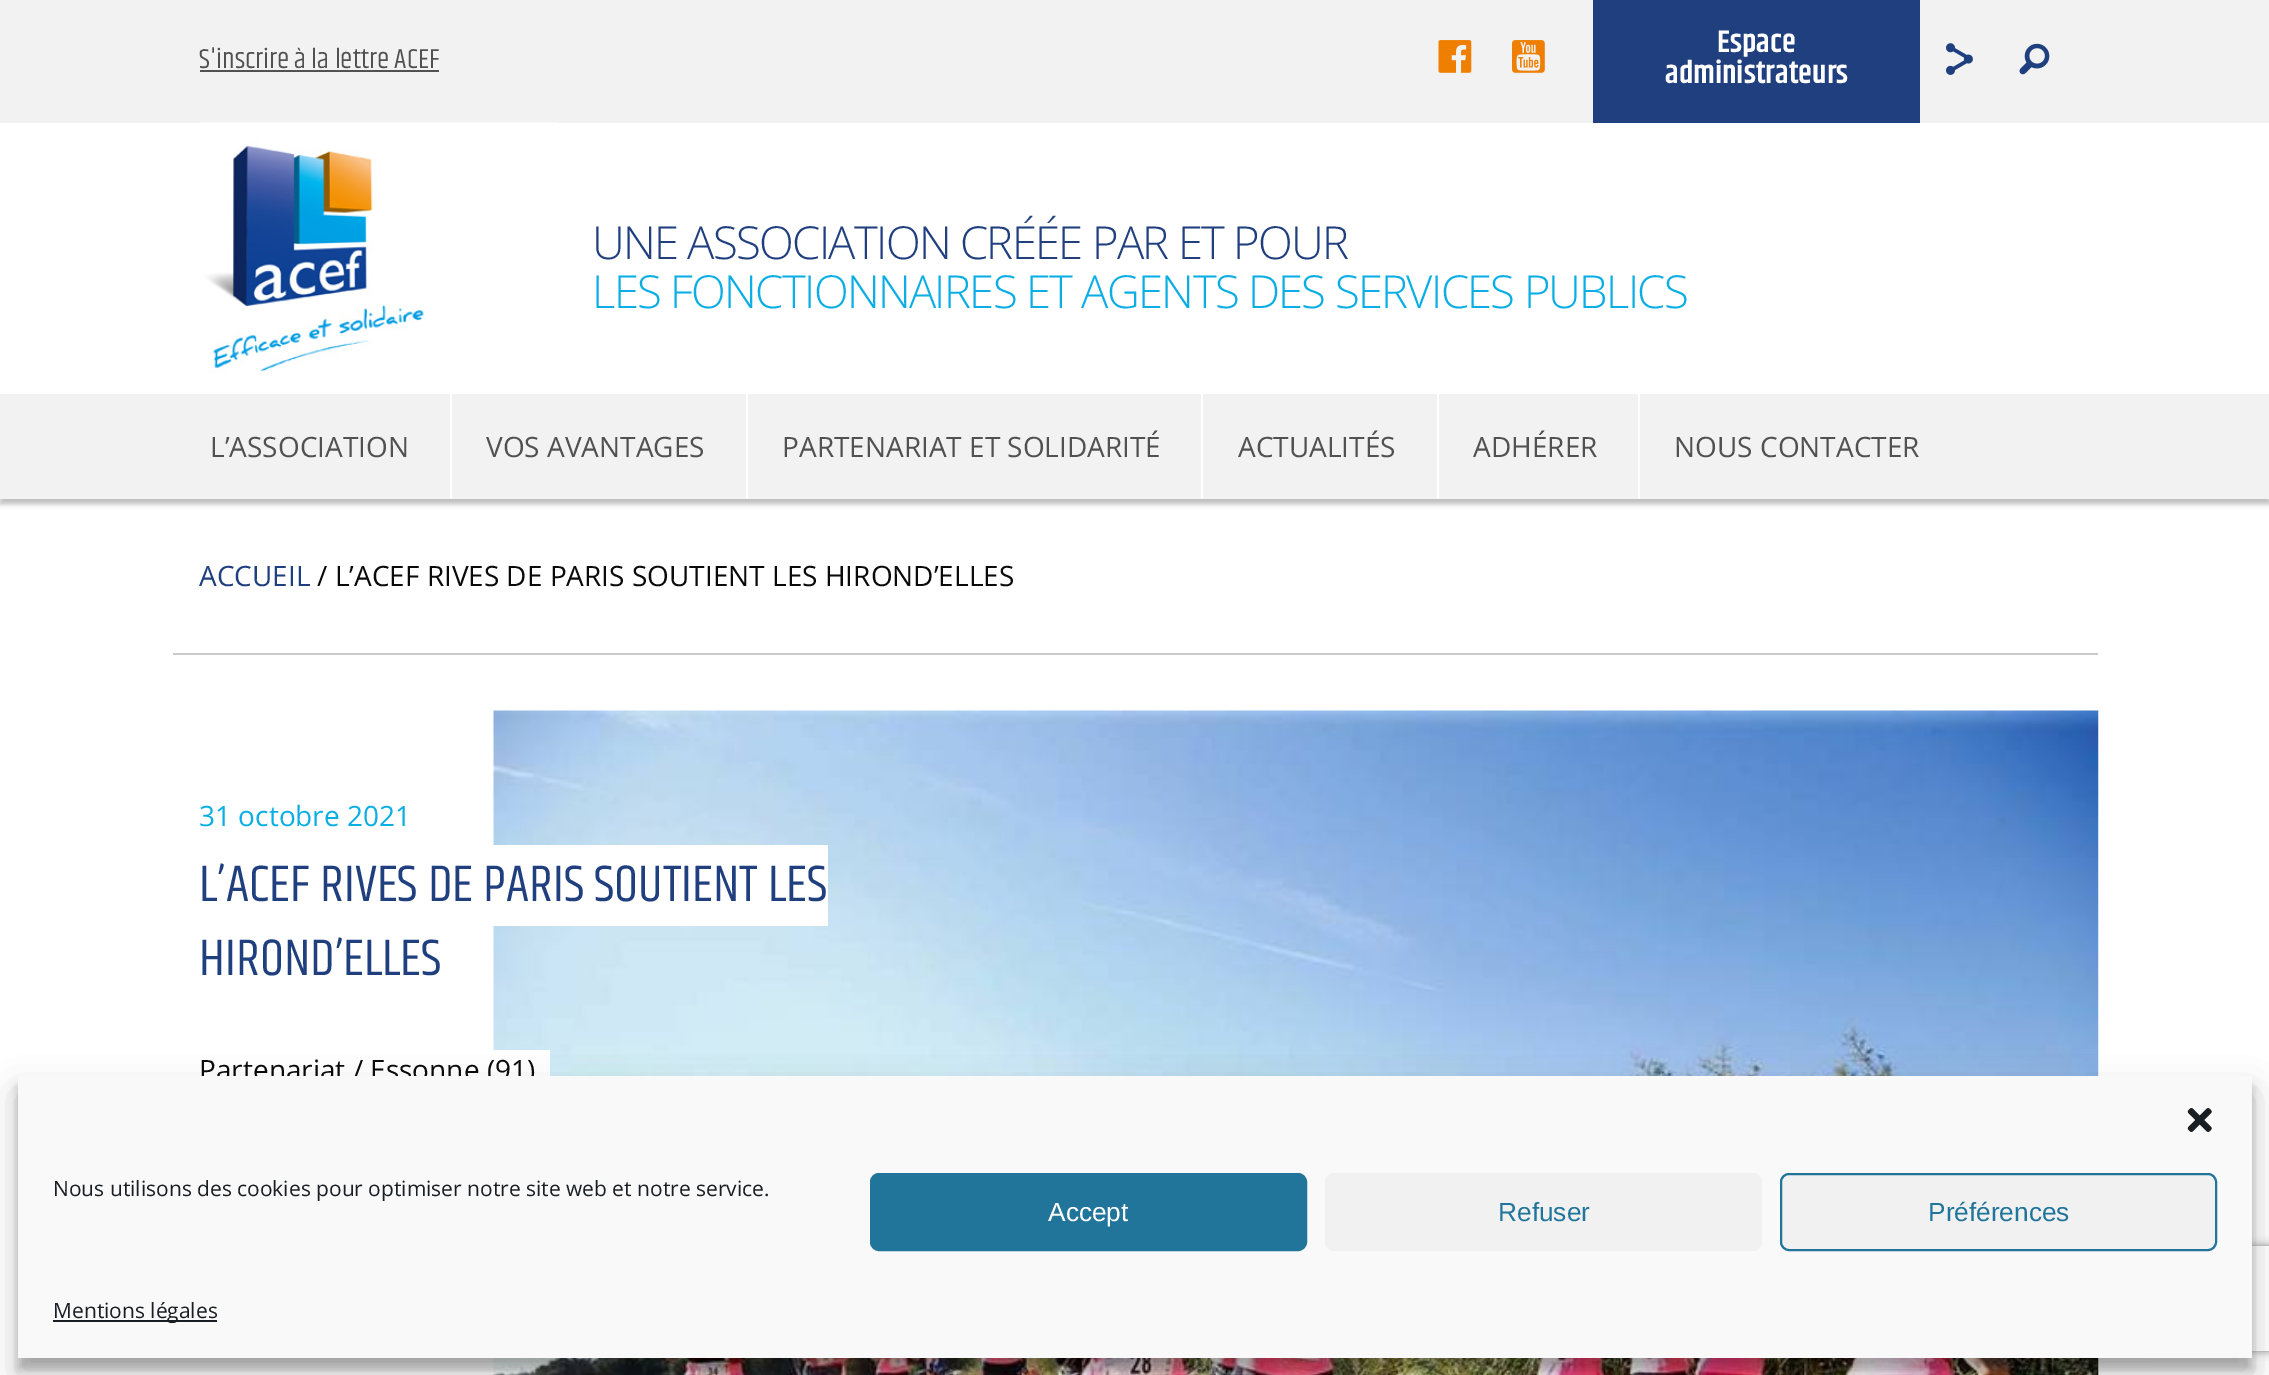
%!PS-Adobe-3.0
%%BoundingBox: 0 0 2269 1375
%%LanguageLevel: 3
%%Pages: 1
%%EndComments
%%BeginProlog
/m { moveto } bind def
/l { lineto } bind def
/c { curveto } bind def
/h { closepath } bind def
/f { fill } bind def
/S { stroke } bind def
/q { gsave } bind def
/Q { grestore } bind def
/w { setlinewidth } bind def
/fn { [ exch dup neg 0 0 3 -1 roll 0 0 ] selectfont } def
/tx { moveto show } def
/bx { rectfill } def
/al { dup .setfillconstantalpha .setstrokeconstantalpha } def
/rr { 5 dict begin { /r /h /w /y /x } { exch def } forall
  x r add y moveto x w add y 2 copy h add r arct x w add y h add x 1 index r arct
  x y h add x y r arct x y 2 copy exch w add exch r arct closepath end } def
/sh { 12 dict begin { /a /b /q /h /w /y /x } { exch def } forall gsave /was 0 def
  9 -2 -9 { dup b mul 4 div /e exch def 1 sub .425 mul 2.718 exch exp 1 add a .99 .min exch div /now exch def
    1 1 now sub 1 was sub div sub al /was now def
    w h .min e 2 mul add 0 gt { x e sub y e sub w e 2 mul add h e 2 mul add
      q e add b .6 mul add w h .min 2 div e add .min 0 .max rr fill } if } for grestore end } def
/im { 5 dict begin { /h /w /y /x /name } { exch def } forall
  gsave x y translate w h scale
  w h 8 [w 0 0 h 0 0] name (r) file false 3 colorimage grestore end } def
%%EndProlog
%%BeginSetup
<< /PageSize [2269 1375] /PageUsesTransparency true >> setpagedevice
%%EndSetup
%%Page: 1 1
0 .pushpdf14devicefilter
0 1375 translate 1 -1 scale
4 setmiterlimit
1 setgray
0 0 2269 1375 bx
0.949 setgray
0 0 2269 123 bx
/Khand-Regular 28 fn
0.318 setgray
(S'inscrire à la lettre ACEF) 199 68 tx
200 70 239 2 bx
(image0.raw) 1438 40 34 33 im
(image1.raw) 1512 40 33 33 im
0.125 0.247 0.498 setrgbcolor
1593 0 327 123 bx
/Khand-SemiBold 31.5 fn
0.996 setgray
(Espace) 1717 52 tx
(administrateurs) 1665 83 tx
(image2.raw) 1946 43 27 32 im
(image3.raw) 2019 43 31 32 im
(image4.raw) 200 122 358 251 im
/OpenSans-Light 45.5 fn
0.125 0.247 0.498 setrgbcolor
592 259 m -1.75 0 (UNE ASSOCIATION CRÉÉE PAR ET POUR) ashow
0.039 0.682 0.898 setrgbcolor
592 308 m -1.75 0 (LES FONCTIONNAIRES ET AGENTS DES SERVICES PUBLICS) ashow
0 setgray
0 399 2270 105 0 2.5 0.25 sh
0.949 setgray
0 394 2269 105 bx
/OpenSans-Regular 28 fn
0.318 setgray
(L’ASSOCIATION) 210 457 tx
1 setgray
450 394 2 105 bx
0.318 setgray
(VOS AVANTAGES) 486 457 tx
1 setgray
746 394 2 105 bx
0.318 setgray
(PARTENARIAT ET SOLIDARITÉ) 782 457 tx
1 setgray
1201 394 2 105 bx
0.318 setgray
(ACTUALITÉS) 1238 457 tx
1 setgray
1437 394 2 105 bx
0.318 setgray
(ADHÉRER) 1473 457 tx
1 setgray
1638 394 2 105 bx
0.318 setgray
(NOUS CONTACTER) 1674 457 tx
0.125 0.247 0.498 setrgbcolor
(ACCUEIL) 199 586 tx
0.039 setgray
(/ L’ACEF RIVES DE PARIS SOUTIENT LES HIROND’ELLES) 317 586 tx
0.792 setgray
173 653 1925 2 bx
(image5.raw) 493 710 1606 665 im
0.039 0.682 0.898 setrgbcolor
(31 octobre 2021) 199 826 tx
1 setgray
493 845 335 81 bx
/Khand-Regular 52.5 fn
0.125 0.247 0.498 setrgbcolor
(L’ACEF RIVES DE PARIS SOUTIENT LES) 199 901 tx
(HIROND’ELLES) 199 975 tx
1 setgray
493 1050 57 26 bx
/OpenSans-Regular 28 fn
0.039 setgray
(Partenariat / Essonne \(91\)) 199 1080 tx
0 setgray
18 1087 2234 282 0 5 0.23 sh
18 1094 2234 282 0 17.5 0.19 sh
q
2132 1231 m 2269 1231 l 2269 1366 l 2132 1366 l h 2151 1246 m 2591 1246 l 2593 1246 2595 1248 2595 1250 c 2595 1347 l 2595 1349 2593 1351 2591 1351 c 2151 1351 l 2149 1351 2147 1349 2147 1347 c 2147 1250 l 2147 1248 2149 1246 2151 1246 c h eoclip newpath
0.502 setgray
2147 1246 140 105 4 4.5 1 sh
Q
0.976 setgray
18 1076 2234 282 bx
(image6.raw) 2187 1108 25 24 im
/OpenSans-Regular 21 fn
0.098 0.118 0.137 setrgbcolor
(Nous utilisons des cookies pour optimiser notre site web et notre service.) 53 1196 tx
0.129 0.459 0.608 setrgbcolor
871 1174 435 76 8 rr q f Q
2 w
S
/LiberationSans-Regular 26.25 fn
0.996 setgray
(Accept) 1048 1221 tx
0.945 setgray
1325 1173 437 78 9 rr f
0.129 0.459 0.608 setrgbcolor
(Refuser) 1498 1221 tx
0.945 setgray
1781 1174 435 76 8 rr q f Q
0.129 0.459 0.608 setrgbcolor
S
(Préférences) 1928 1221 tx
0.098 0.118 0.137 setrgbcolor
53 1320 164 2 bx
/OpenSans-Regular 21 fn
(Mentions légales) 53 1318 tx
.poppdf14devicefilter showpage
%%EOF
